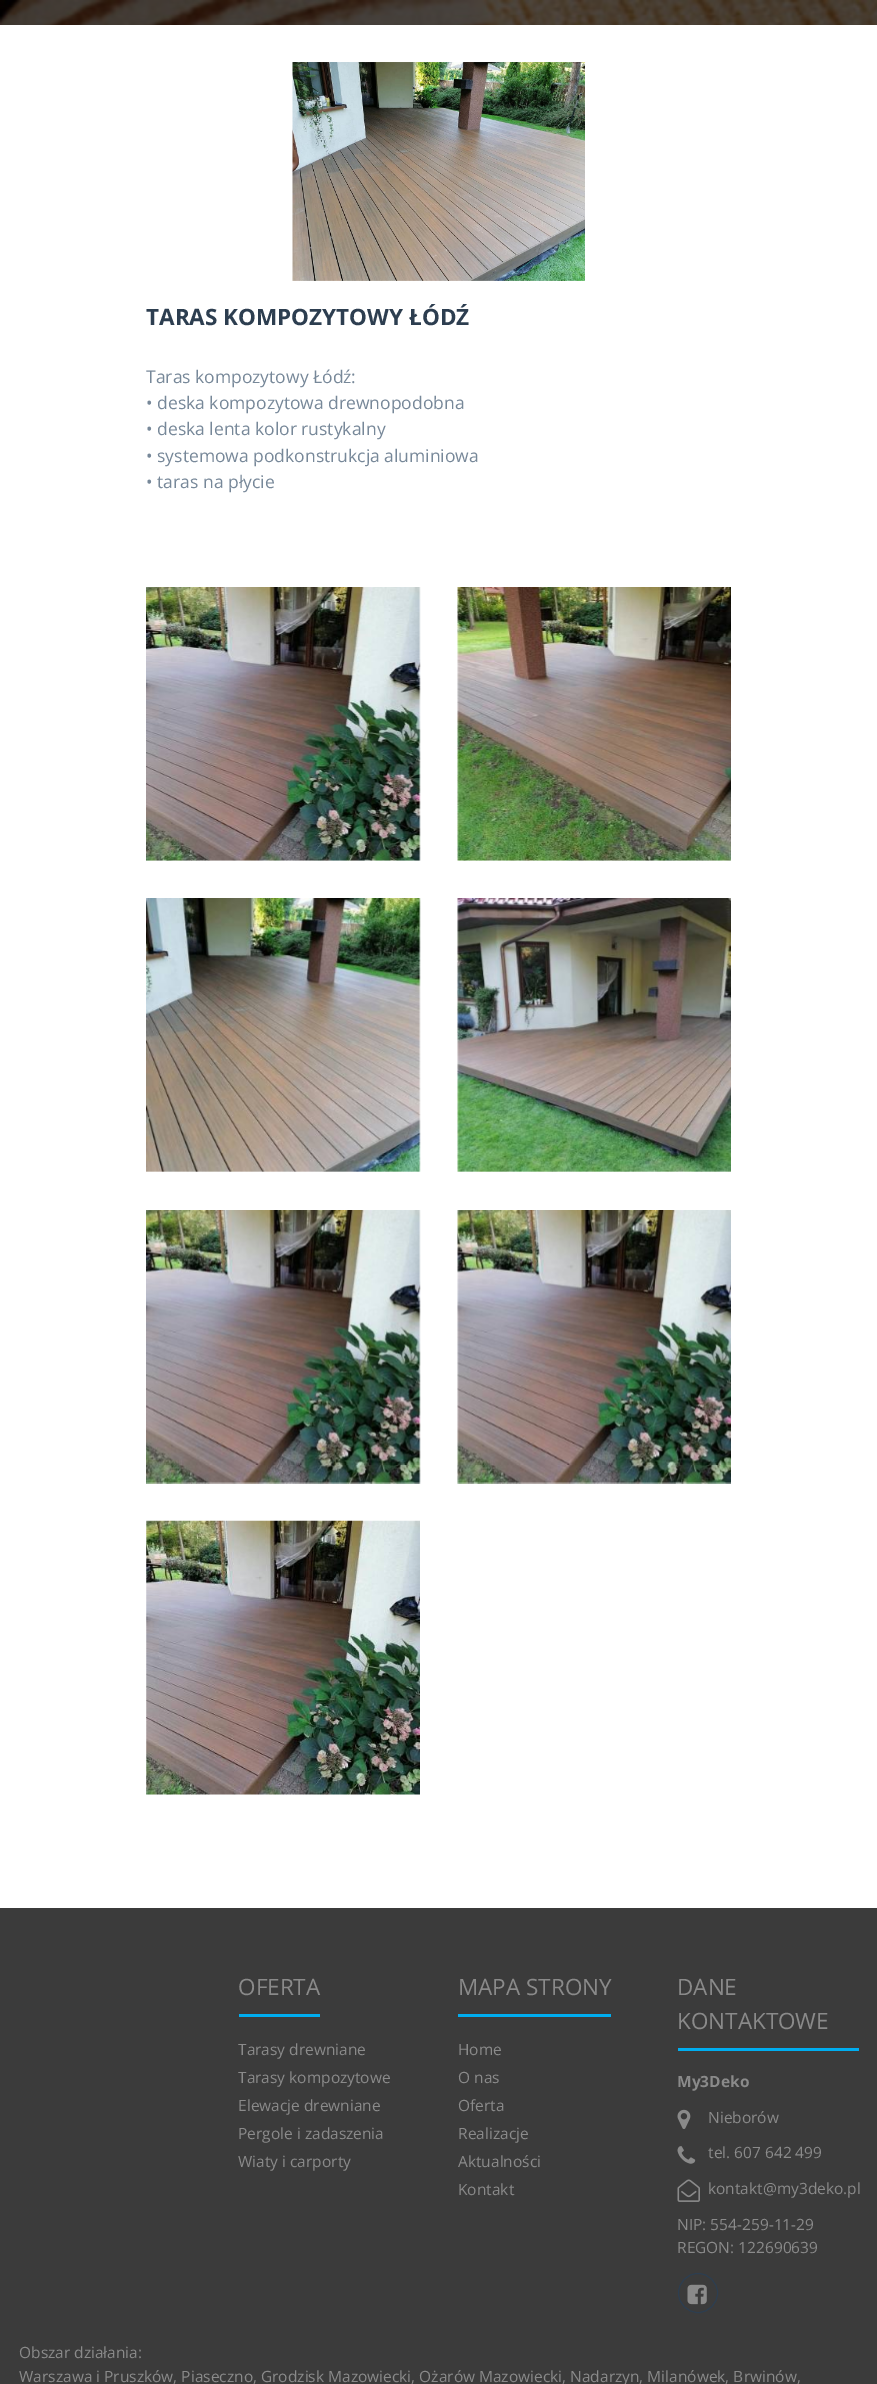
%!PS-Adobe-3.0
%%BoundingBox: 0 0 877 2384
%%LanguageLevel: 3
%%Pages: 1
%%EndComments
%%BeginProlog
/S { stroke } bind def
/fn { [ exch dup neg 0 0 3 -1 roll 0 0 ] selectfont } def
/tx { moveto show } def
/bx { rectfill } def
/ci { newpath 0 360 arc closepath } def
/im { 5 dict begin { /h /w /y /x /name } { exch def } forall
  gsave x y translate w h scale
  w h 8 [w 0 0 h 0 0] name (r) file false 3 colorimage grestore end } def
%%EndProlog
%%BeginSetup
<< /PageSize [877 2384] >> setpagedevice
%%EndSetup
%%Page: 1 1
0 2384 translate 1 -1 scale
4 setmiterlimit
1 setgray
0 0 877 2384 bx
(image0.raw) 0 0 877 25 im
(image1.raw) 292 62 293 219 im
/OpenSans-Bold 22.5 fn
0.176 0.243 0.314 setrgbcolor
(TARAS KOMPOZYTOWY ŁÓDŹ) 146 325 tx
/OpenSans-Regular 17.5 fn
0.467 0.533 0.6 setrgbcolor
(Taras kompozytowy Łódź:) 146 383 tx
(• deska kompozytowa drewnopodobna) 146 409 tx
(• deska lenta kolor rustykalny) 146 435 tx
(• systemowa podkonstrukcja aluminiowa) 146 462 tx
(• taras na płycie) 146 488 tx
(image2.raw) 146 587 275 274 im
(image3.raw) 457 587 274 274 im
(image4.raw) 146 898 275 274 im
(image5.raw) 457 898 274 274 im
(image6.raw) 146 1210 275 274 im
(image7.raw) 457 1210 274 274 im
(image8.raw) 146 1520 274 275 im
0.231 setgray
0 1908 877 476 bx
/OpenSans-Regular 22.5 fn
0.541 setgray
(OFERTA) 238 1995 tx
0 0.678 0.937 setrgbcolor
239 2014 81 3 bx
/OpenSans-Regular 15.5 fn
0.541 setgray
(Tarasy drewniane) 238 2055 tx
(Tarasy kompozytowe) 238 2083 tx
(Elewacje drewniane) 238 2111 tx
(Pergole i zadaszenia) 238 2139 tx
(Wiaty i carporty) 238 2167 tx
/OpenSans-Regular 22.5 fn
(MAPA STRONY) 458 1995 tx
0 0.678 0.937 setrgbcolor
458 2014 153 3 bx
/OpenSans-Regular 15.5 fn
0.541 setgray
(Home) 458 2055 tx
(O nas) 458 2083 tx
(Oferta) 458 2111 tx
(Realizacje) 458 2139 tx
(Aktualności) 458 2167 tx
(Kontakt) 458 2195 tx
/OpenSans-Regular 22.5 fn
(DANE) 677 1995 tx
(KONTAKTOWE) 677 2029 tx
0 0.678 0.937 setrgbcolor
678 2048 181 3 bx
/OpenSans-Bold 15.5 fn
0.541 setgray
(My3Deko) 677 2087 tx
(image9.raw) 677 2109 14 20 im
/OpenSans-Regular 15.5 fn
(Nieborów) 708 2123 tx
(image10.raw) 677 2146 19 18 im
(tel. 607 642 499) 708 2158 tx
(image11.raw) 677 2179 23 23 im
(kontakt@my3deko.pl) 708 2194 tx
(NIP: 554-259-11-29) 677 2230 tx
(REGON: 122690639) 677 2253 tx
0.176 0.243 0.314 setrgbcolor
698 2293 19.5 ci S
(image12.raw) 687 2284 20 21 im
0.541 setgray
(Obszar działania:) 19 2358 tx
(Warszawa i Pruszków, Piaseczno, Grodzisk Mazowiecki, Ożarów Mazowiecki, Nadarzyn, Milanówek, Brwinów,) 19 2382 tx
showpage
%%EOF
